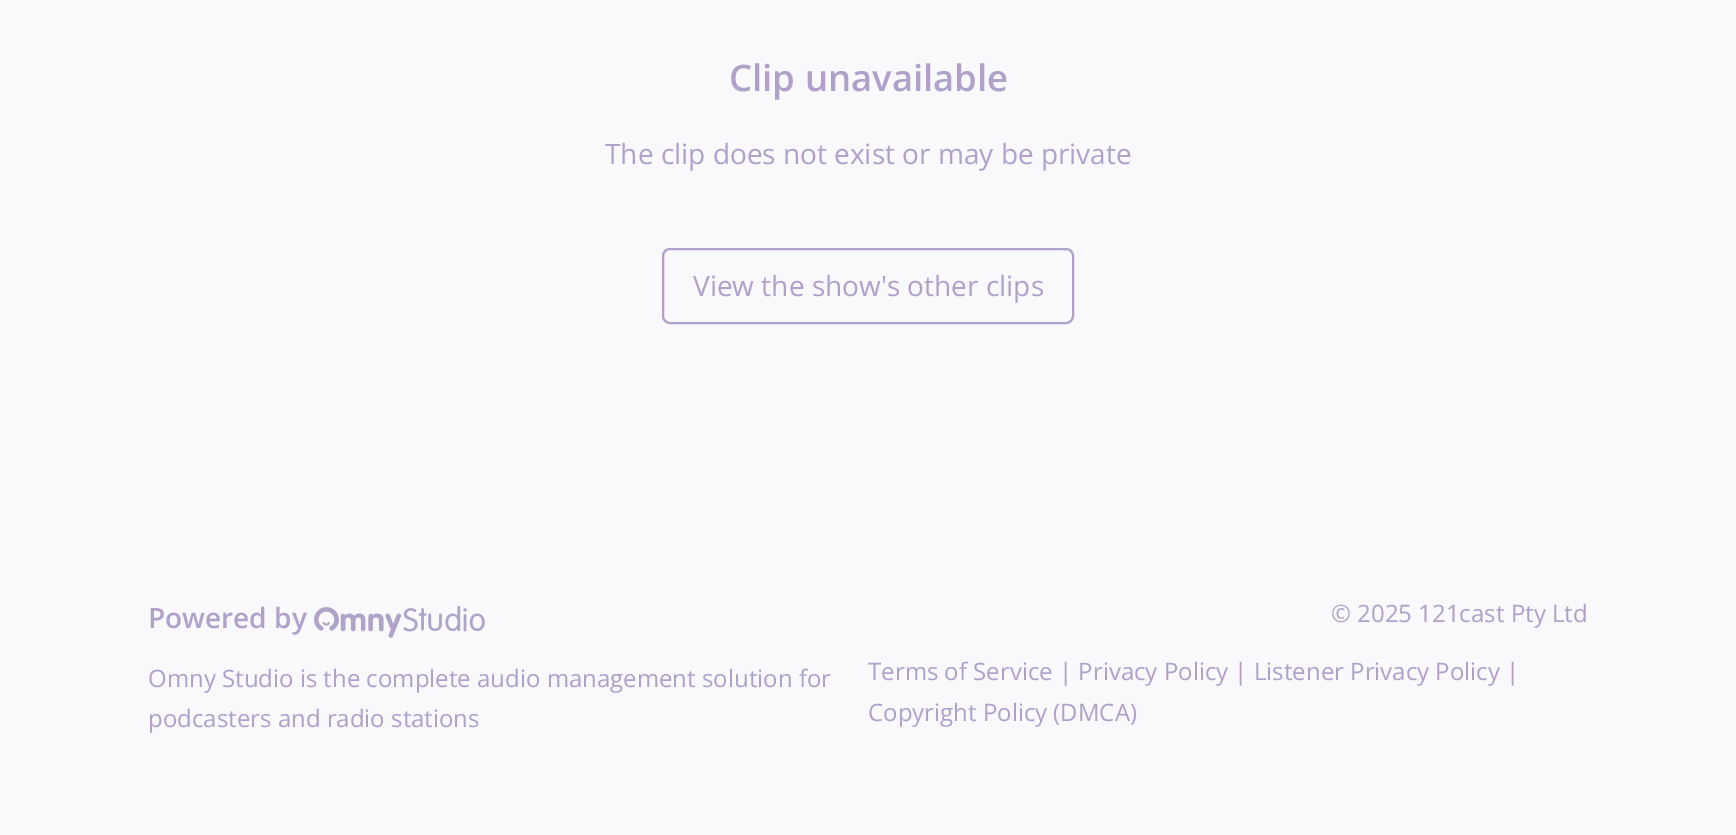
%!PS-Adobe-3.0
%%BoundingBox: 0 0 1736 835
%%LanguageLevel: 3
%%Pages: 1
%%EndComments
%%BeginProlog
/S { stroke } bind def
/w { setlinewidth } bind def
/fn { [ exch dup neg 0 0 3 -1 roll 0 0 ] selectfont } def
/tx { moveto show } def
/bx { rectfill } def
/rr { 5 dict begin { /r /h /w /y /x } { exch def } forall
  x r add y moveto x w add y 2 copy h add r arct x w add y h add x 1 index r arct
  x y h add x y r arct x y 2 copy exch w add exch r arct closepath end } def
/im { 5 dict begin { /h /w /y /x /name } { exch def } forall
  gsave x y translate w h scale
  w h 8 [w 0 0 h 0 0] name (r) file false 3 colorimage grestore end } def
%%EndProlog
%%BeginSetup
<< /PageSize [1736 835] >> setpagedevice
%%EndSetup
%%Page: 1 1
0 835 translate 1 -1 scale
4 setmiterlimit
0.976 0.973 0.984 setrgbcolor
0 0 1736 835 bx
/OpenSans-SemiBold 36.5 fn
0.686 0.631 0.792 setrgbcolor
(Clip unavailable) 729 91 tx
/OpenSans-Regular 28 fn
(The clip does not exist or may be private) 605 164 tx
2 w
663 249 410 74 7 rr S
(View the show's other clips) 693 296 tx
/OpenSans-SemiBold 28 fn
(Powered by) 148 628 tx
(image0.raw) 314 606 171 32 im
/OpenSans-Regular 24 fn
(Omny Studio is the complete audio management solution for) 148 687 tx
(podcasters and radio stations) 148 727 tx
(© 2025 121cast Pty Ltd) 1331 622 tx
(Terms of Service | Privacy Policy | Listener Privacy Policy |) 868 680 tx
(Copyright Policy \(DMCA\)) 868 721 tx
showpage
%%EOF
